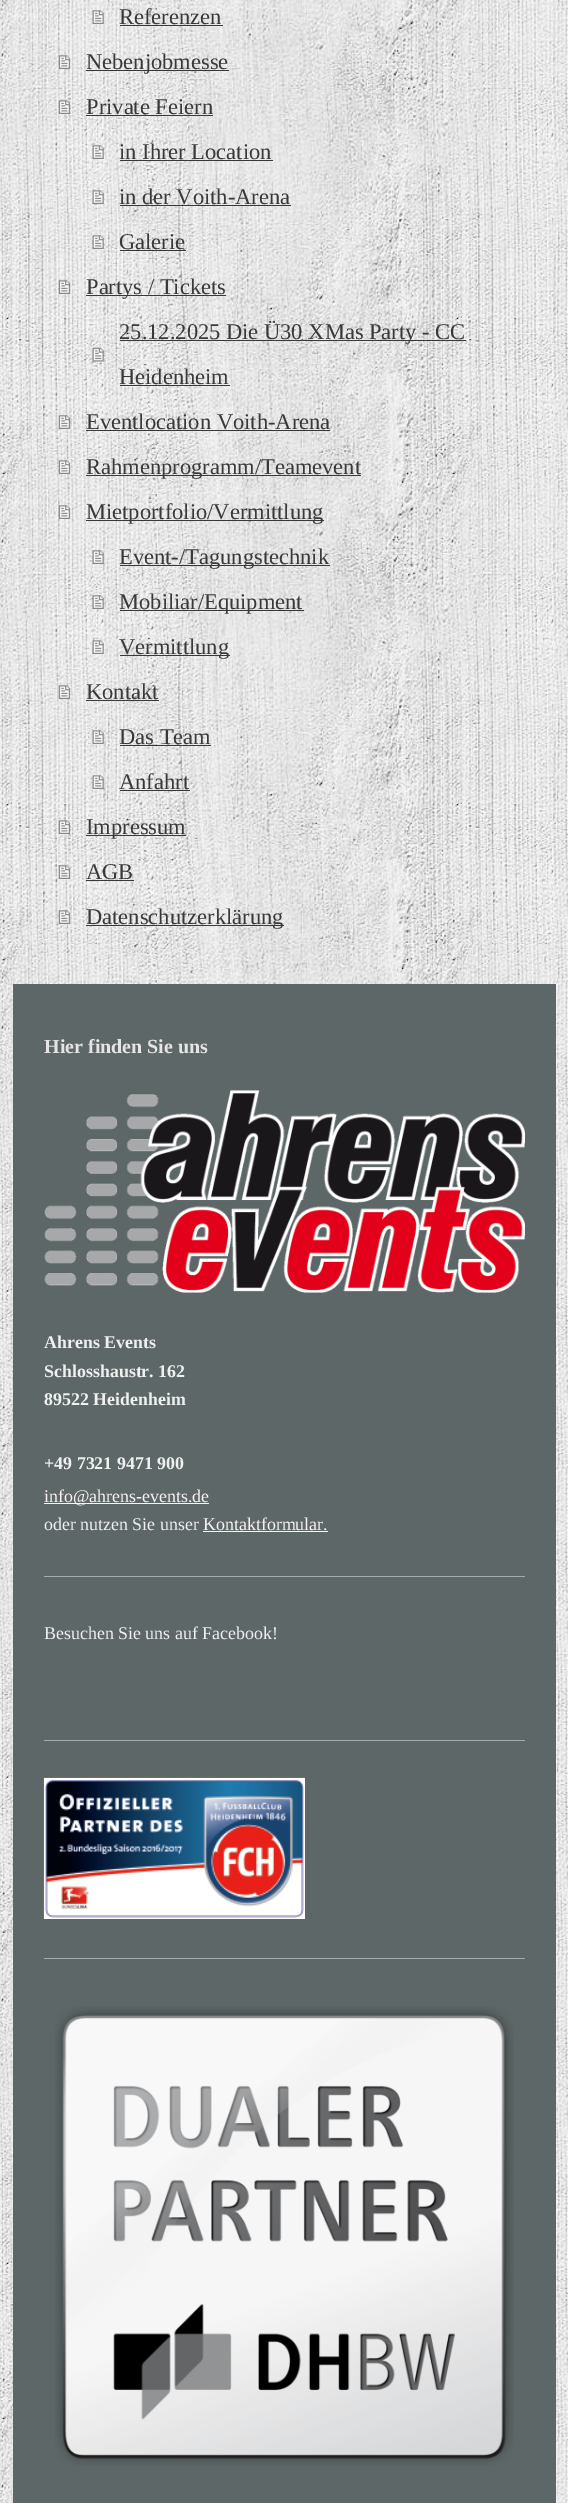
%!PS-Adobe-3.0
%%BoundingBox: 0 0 568 2503
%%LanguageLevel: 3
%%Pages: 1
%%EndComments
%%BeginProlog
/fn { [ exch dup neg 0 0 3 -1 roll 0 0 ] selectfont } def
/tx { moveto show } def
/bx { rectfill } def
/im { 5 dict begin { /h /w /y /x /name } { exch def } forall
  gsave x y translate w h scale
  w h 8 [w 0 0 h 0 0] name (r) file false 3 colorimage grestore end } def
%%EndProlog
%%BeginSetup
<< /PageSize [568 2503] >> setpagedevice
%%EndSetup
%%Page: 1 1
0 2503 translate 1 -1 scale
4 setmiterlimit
1 setgray
0 0 568 2503 bx
(image0.raw) 0 0 568 2503 im
(image1.raw) 92 10 12 14 im
/LiberationSerif-Regular 22.5 fn
0.224 setgray
(Referenzen) 119 24 tx
120 25 103 1 bx
(image2.raw) 58 55 13 14 im
86 70 143 1 bx
(Nebenjobmesse) 86 69 tx
(image3.raw) 58 100 13 14 im
(Private Feiern) 86 114 tx
86 115 127 1 bx
(image4.raw) 92 145 12 14 im
(in Ihrer Location) 119 159 tx
120 160 153 1 bx
(image5.raw) 92 190 12 14 im
(in der Voith-Arena) 119 204 tx
120 205 171 1 bx
(image6.raw) 92 235 12 14 im
(Galerie) 119 249 tx
120 250 66 1 bx
(image7.raw) 58 280 13 14 im
86 295 140 1 bx
(Partys / Tickets) 86 294 tx
(image8.raw) 92 347 12 15 im
120 340 346 1 bx
(25.12.2025 Die Ü30 XMas Party - CC) 119 339 tx
(Heidenheim) 119 384 tx
120 385 110 1 bx
(image9.raw) 58 415 13 14 im
(Eventlocation Voith-Arena) 86 429 tx
86 430 244 1 bx
(image10.raw) 58 460 13 14 im
86 475 275 1 bx
(Rahmenprogramm/Teamevent) 86 474 tx
(image11.raw) 58 505 13 14 im
86 520 238 1 bx
(Mietportfolio/Vermittlung) 86 519 tx
(image12.raw) 92 550 12 14 im
120 565 210 1 bx
(Event-/Tagungstechnik) 119 564 tx
(image13.raw) 92 595 12 14 im
120 610 184 1 bx
(Mobiliar/Equipment) 119 609 tx
(image14.raw) 92 640 12 14 im
120 655 110 1 bx
(Vermittlung) 119 654 tx
(image15.raw) 58 685 13 14 im
(Kontakt) 86 699 tx
86 700 73 1 bx
(image16.raw) 92 730 12 14 im
(Das Team) 119 744 tx
120 745 91 1 bx
(image17.raw) 92 775 12 14 im
(Anfahrt) 119 789 tx
120 790 70 1 bx
(image18.raw) 58 820 13 14 im
86 835 100 1 bx
(Impressum) 86 834 tx
(image19.raw) 58 865 13 14 im
(AGB) 86 879 tx
86 880 48 1 bx
(image20.raw) 58 910 13 14 im
86 925 198 1 bx
(Datenschutzerklärung) 86 924 tx
0.369 0.404 0.404 setrgbcolor
13 984 543 1519 bx
/LiberationSerif-Bold 20 fn
0.898 setgray
(Hier finden Sie uns) 44 1053 tx
(image21.raw) 44 1090 481 203 im
/LiberationSerif-Bold 17.9 fn
0.937 0.941 0.941 setrgbcolor
(Ahrens Events) 44 1348 tx
(Schlosshaustr. 162) 44 1377 tx
(89522 Heidenheim) 44 1405 tx
(+49 7321 9471 900) 44 1469 tx
0.973 0.949 0.953 setrgbcolor
44 1503 165 1 bx
/LiberationSerif-Regular 17.9 fn
(info@ahrens-events.de) 44 1502 tx
0.937 0.941 0.941 setrgbcolor
(oder nutzen Sie unser) 44 1530 tx
0.973 0.949 0.953 setrgbcolor
(Kontaktformular.) 203 1530 tx
203 1531 125 1 bx
0.643 0.671 0.671 setrgbcolor
44 1576 481 1 bx
0.937 0.941 0.941 setrgbcolor
(Besuchen Sie uns auf Facebook!) 44 1639 tx
0.643 0.671 0.671 setrgbcolor
44 1740 481 1 bx
(image22.raw) 43 1777 262 142 im
44 1958 481 1 bx
(image23.raw) 55 2006 459 460 im
showpage
%%EOF
